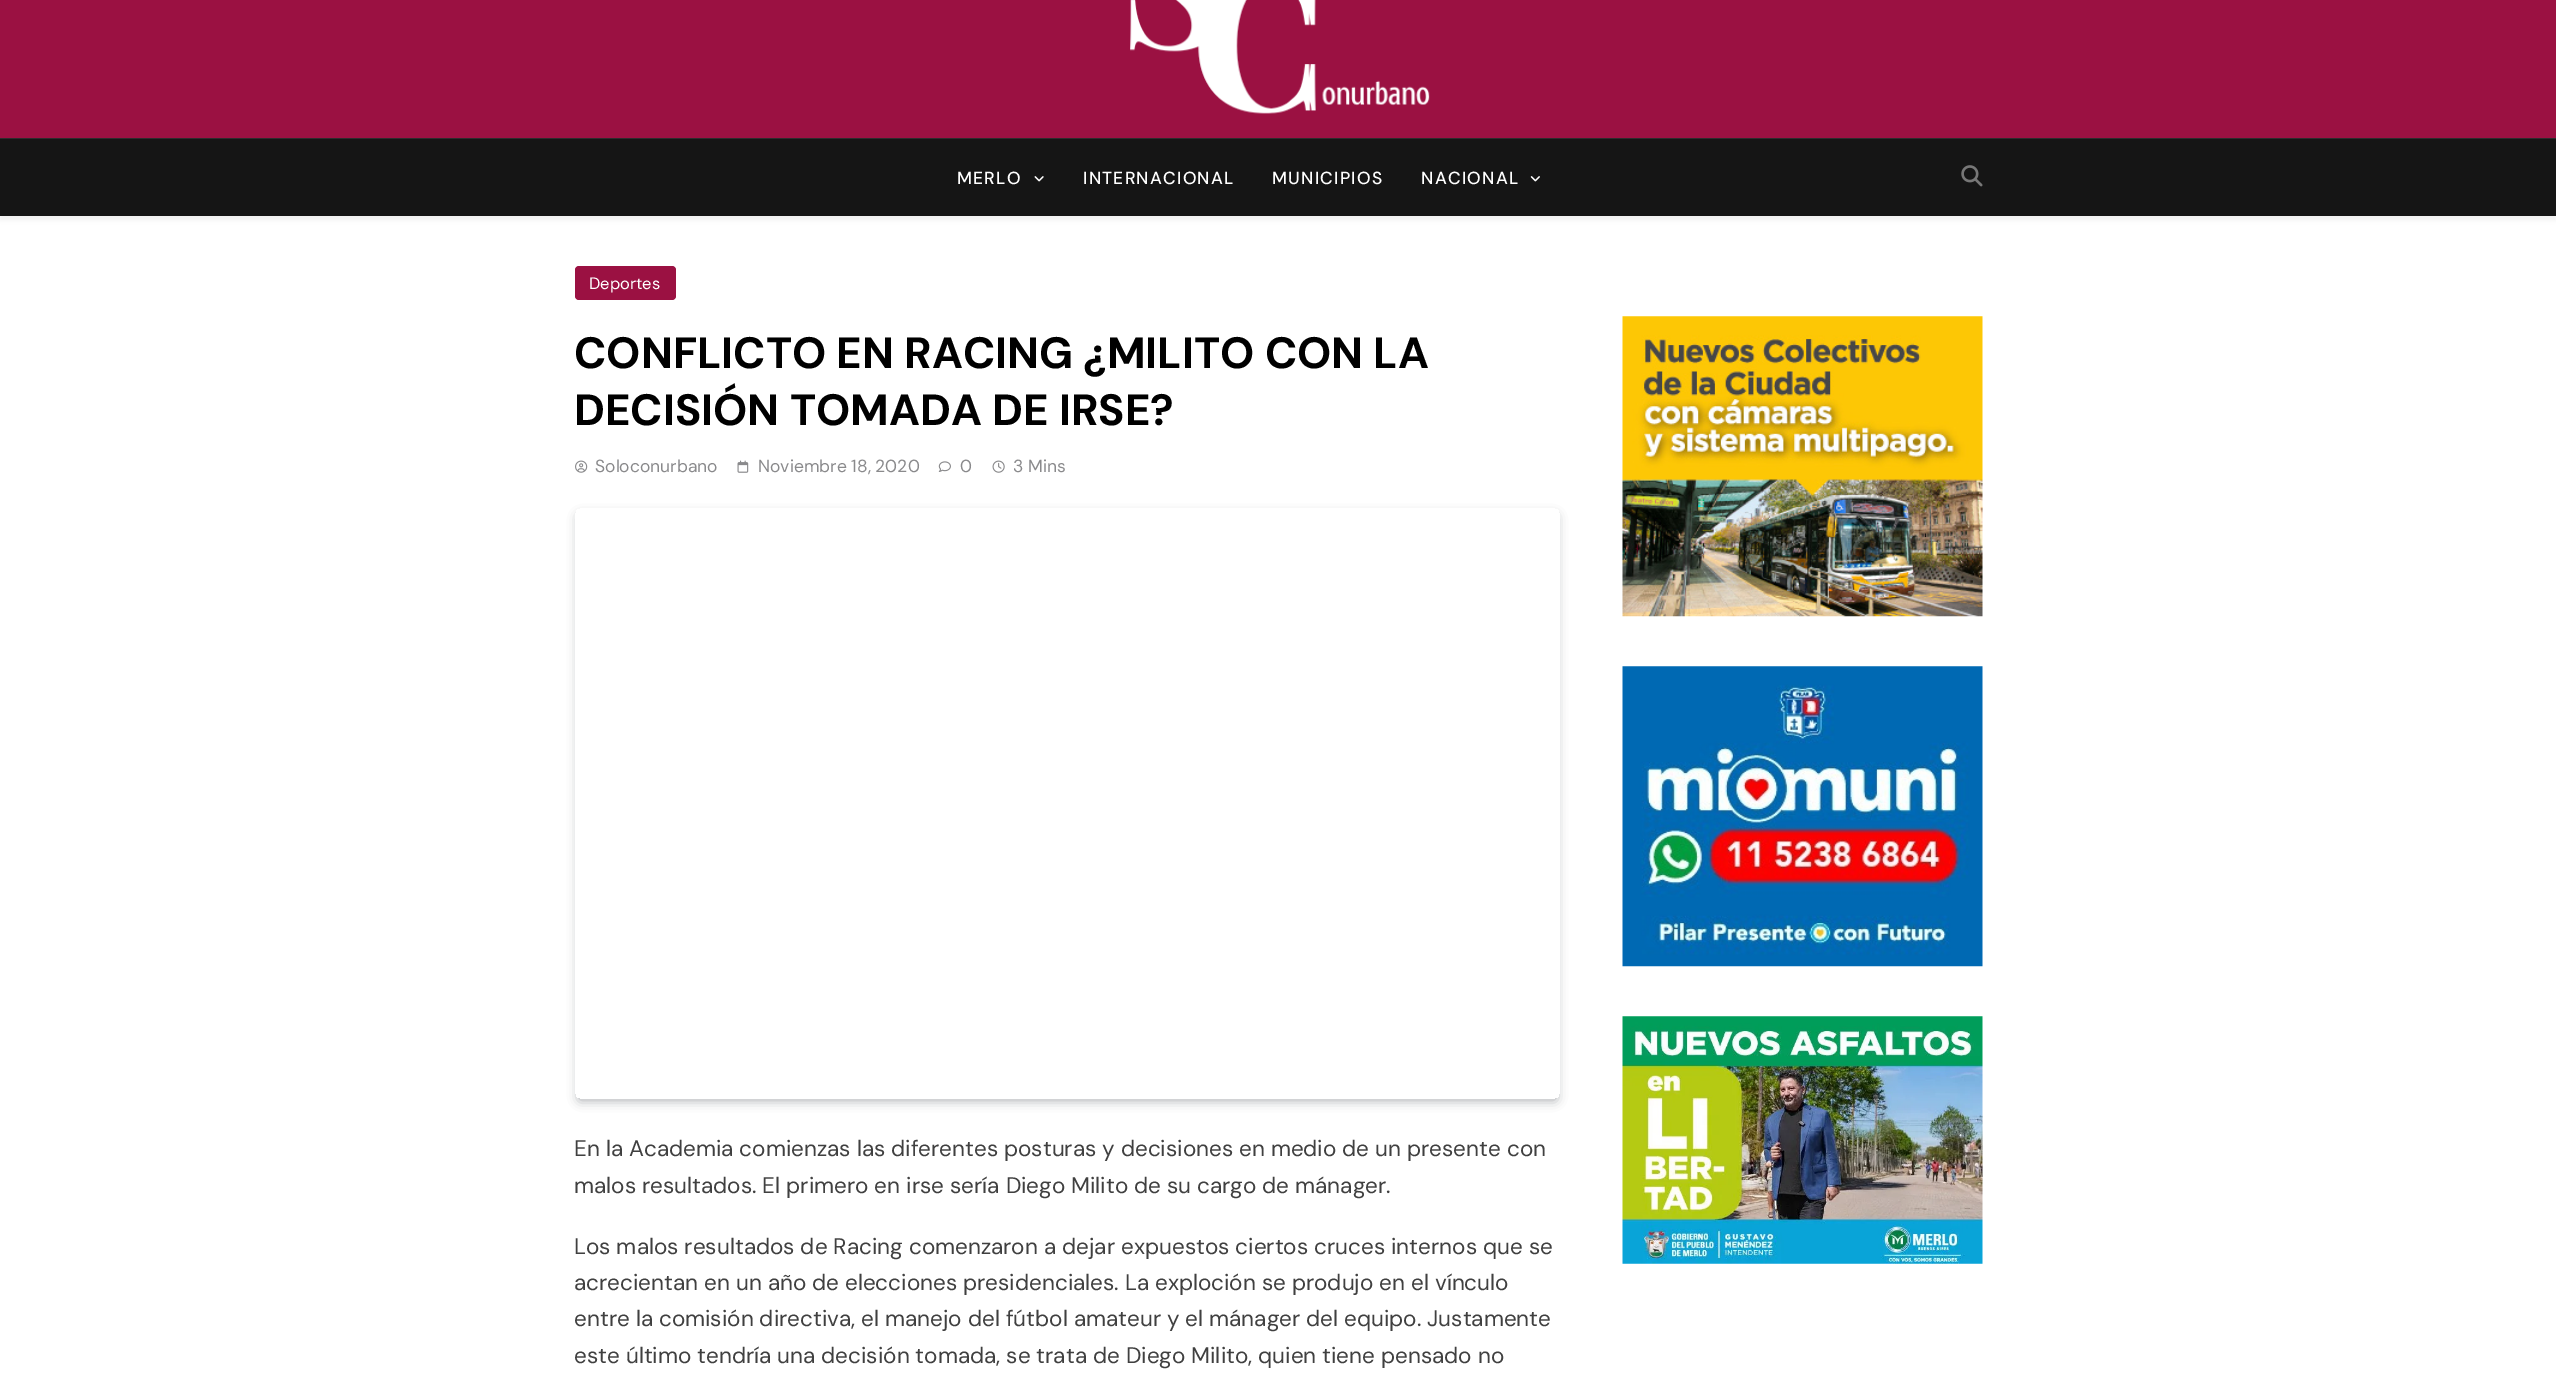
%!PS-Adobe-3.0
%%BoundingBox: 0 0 2556 1375
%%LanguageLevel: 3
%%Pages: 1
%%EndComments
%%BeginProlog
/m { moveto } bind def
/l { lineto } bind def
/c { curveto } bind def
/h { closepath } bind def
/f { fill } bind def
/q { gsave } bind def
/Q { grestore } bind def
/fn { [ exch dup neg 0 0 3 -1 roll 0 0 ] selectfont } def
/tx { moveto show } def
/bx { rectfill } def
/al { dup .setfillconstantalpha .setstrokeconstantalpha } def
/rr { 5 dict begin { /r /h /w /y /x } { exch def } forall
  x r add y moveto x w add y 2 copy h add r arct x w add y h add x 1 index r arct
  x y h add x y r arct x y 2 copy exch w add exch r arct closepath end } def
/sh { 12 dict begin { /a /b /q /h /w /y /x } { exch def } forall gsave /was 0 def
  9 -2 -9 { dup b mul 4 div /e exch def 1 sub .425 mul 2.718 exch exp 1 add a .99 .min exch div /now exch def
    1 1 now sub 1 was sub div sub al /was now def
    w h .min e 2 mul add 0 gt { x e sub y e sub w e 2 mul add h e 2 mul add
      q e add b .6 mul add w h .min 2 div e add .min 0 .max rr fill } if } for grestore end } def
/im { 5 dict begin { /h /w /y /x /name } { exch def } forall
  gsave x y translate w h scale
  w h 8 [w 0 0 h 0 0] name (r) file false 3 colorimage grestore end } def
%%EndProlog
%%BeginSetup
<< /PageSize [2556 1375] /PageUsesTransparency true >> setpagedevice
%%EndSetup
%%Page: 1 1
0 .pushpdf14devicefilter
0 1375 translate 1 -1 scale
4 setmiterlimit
1 setgray
0 0 2556 1375 bx
0 setgray
0 -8 2556 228 0 2.5 0.05 sh
0.608 0.067 0.259 setrgbcolor
0 0 2556 138 bx
(image0.raw) 1130 0 300 114 im
0.082 setgray
0 139 2556 77 bx
0.173 setgray
0 138 2556 1 bx
/DMSans-Medium 17.5 fn
1 setgray
957 184 m 1.25 0 (MERLO) ashow
(image1.raw) 1034 176 10 6 im
1083 184 m 1.25 0 (INTERNACIONAL) ashow
1272 184 m 1.25 0 (MUNICIPIOS) ashow
1421 184 m 1.25 0 (NACIONAL) ashow
(image2.raw) 1530 176 10 6 im
(image3.raw) 1961 165 22 22 im
0.608 0.067 0.259 setrgbcolor
575 266 101 34 4 rr f
/DMSans-Regular 16.5 fn
1 setgray
(Deportes) 589 289 tx
/DMSans-Bold 43.75 fn
0 setgray
(CONFLICTO EN RACING ¿MILITO CON LA) 574 368 tx
(DECISIÓN TOMADA DE IRSE?) 574 425 tx
(image4.raw) 575 460 13 13 im
/DMSans-Regular 17.5 fn
0.541 0.541 0.549 setrgbcolor
(Soloconurbano) 595 472 tx
(image5.raw) 737 460 12 13 im
(Noviembre 18, 2020) 758 472 tx
(image6.raw) 938 461 13 11 im
(0) 960 472 tx
(image7.raw) 992 460 13 13 im
(3 Mins) 1013 472 tx
q
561 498 m 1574 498 l 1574 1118 l 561 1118 l h 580 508 m 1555 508 l 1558 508 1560 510 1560 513 c 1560 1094 l 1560 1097 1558 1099 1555 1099 c 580 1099 l 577 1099 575 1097 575 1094 c 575 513 l 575 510 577 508 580 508 c h eoclip newpath
0.027 0.039 0.098 setrgbcolor
579 516 977 584 1 5.5 0.35 sh
Q
/DMSans-Regular 22.5 fn
0.251 setgray
(En la Academia comienzas las diferentes posturas y decisiones en medio de un presente con) 574 1156 tx
(malos resultados. El primero en irse sería Diego Milito de su cargo de mánager.) 574 1193 tx
(Los malos resultados de Racing comenzaron a dejar expuestos ciertos cruces internos que se) 574 1254 tx
(acrecientan en un año de elecciones presidenciales. La exploción se produjo en el vínculo) 574 1290 tx
(entre la comisión directiva, el manejo del fútbol amateur y el mánager del equipo. Justamente) 574 1326 tx
(este último tendría una decisión tomada, se trata de Diego Milito, quien tiene pensado no) 574 1363 tx
(image8.raw) 1622 316 361 301 im
(image9.raw) 1622 666 361 301 im
(image10.raw) 1622 1016 361 248 im
.poppdf14devicefilter showpage
%%EOF
